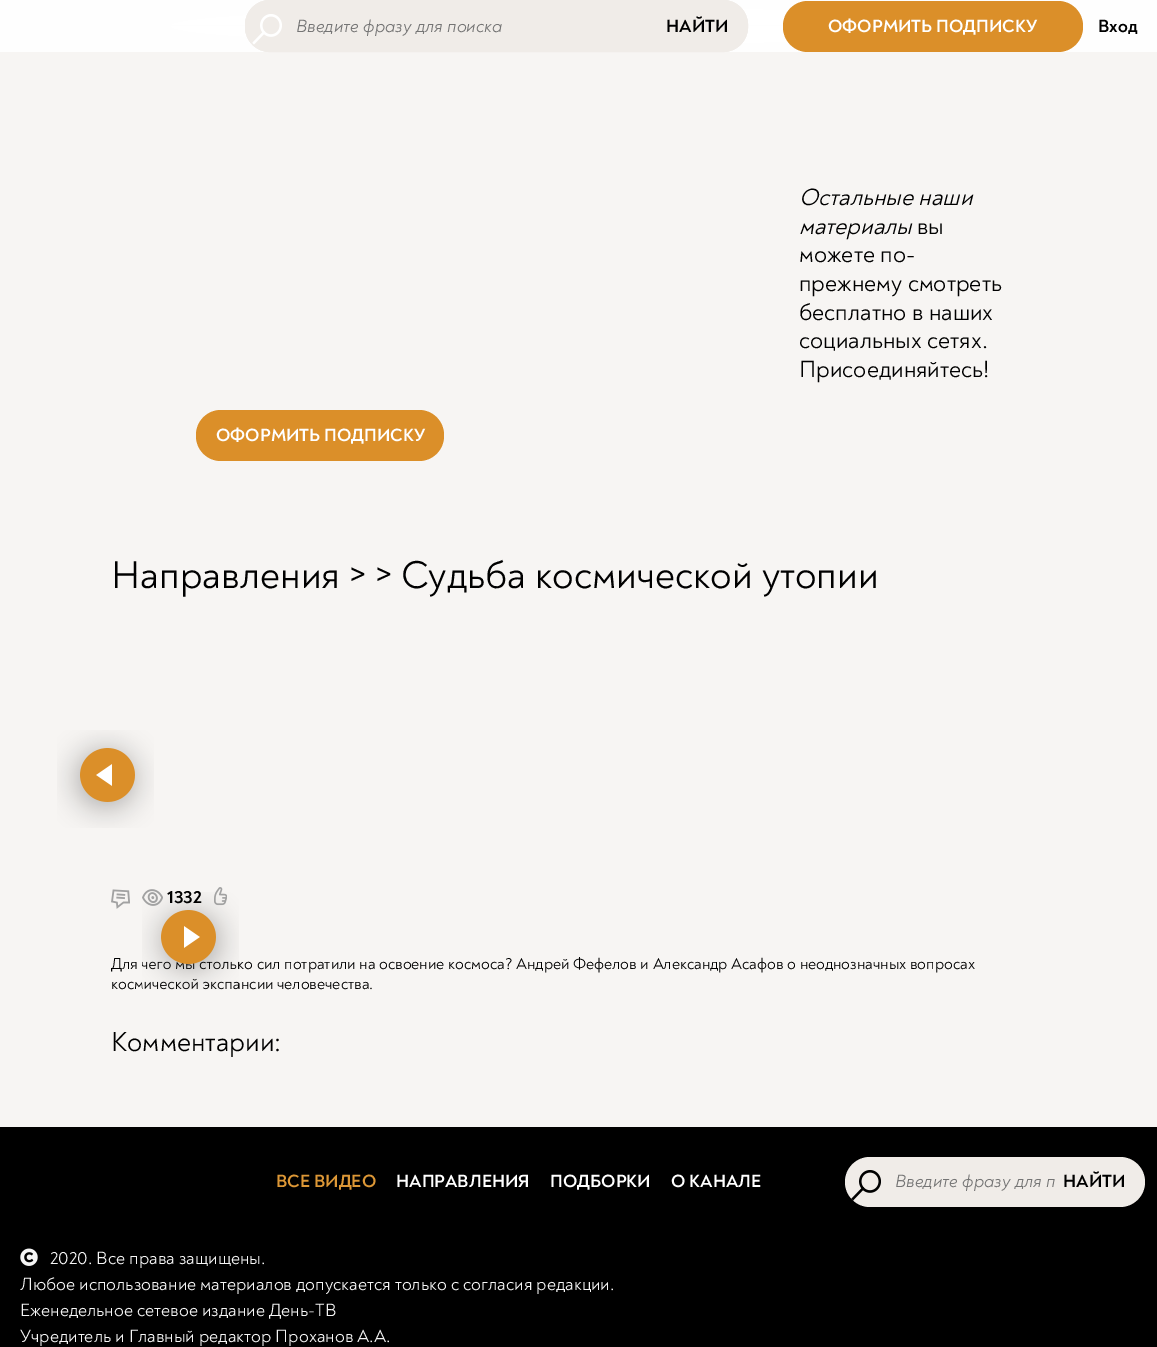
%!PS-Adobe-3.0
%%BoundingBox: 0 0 1157 1347
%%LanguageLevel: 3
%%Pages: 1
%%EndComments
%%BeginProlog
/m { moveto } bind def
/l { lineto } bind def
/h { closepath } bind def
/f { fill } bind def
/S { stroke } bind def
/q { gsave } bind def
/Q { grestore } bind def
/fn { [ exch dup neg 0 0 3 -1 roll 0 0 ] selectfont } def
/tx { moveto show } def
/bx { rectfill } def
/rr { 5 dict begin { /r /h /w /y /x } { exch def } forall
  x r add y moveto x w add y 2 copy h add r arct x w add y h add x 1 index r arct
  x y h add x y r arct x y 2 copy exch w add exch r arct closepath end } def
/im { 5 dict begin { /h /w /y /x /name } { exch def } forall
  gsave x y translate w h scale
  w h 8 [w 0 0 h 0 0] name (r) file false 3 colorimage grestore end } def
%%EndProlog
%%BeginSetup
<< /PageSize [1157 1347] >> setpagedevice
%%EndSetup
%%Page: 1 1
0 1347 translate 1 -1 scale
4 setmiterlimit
0.969 0.961 0.953 setrgbcolor
0 0 1157 1347 bx
q 0 0 m 1157 0 l 1157 52 l 0 52 l h clip newpath 579 26 translate 818 37 scale
<< /ShadingType 3 /ColorSpace /DeviceRGB /Coords [0 0 0 0 0 1] /Extend [true true] /Function << /FunctionType 2 /Domain [0 1] /C0 [1 1 1] /C1 [0.996 0.996 0.996] /N 1 >> >> shfill Q
0.941 0.925 0.91 setrgbcolor
245 0 503 52 25 rr f
(image0.raw) 251 14 31 31 im
245.5 0.5 502 51 24.5 rr S
/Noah-Italic 18 fn
0.459 setgray
(Введите фразу для поиска) 296 32 tx
/Noah-Bold 18 fn
0 setgray
(НАЙТИ) 666 32 tx
0.859 0.561 0.161 setrgbcolor
783 1 300 51 25 rr f
1 setgray
(ОФОРМИТЬ ПОДПИСКУ) 828 32 tx
0 setgray
(Вход) 1098 32 tx
/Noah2-Italic 23.9 fn
(Остальные наши) 799 205 tx
(материалы) 799 234 tx
/Noah-Regular 23.9 fn
(вы) 917 234 tx
(можете по-) 799 262 tx
(прежнему смотреть) 799 291 tx
(бесплатно в наших) 799 320 tx
(социальных сетях.) 799 348 tx
(Присоединяйтесь!) 799 377 tx
0.859 0.561 0.161 setrgbcolor
196 410 248 51 25 rr f
/Noah-Bold 18 fn
1 setgray
(ОФОРМИТЬ ПОДПИСКУ) 216 441 tx
/Noah-Regular 39.4 fn
0 setgray
(Направления > > Судьба космической утопии) 111 588 tx
(image1.raw) 57 730 97 98 im
(image2.raw) 111 889 19 20 im
/Noah-Regular 16 fn
(Для чего мы столько сил потратили на освоение космоса? Андрей Фефелов и Александр Асафов о неоднозначных вопросах) 111 969 tx
(космической экспансии человечества.) 111 989 tx
(image5.raw) 142 892 97 98 im
(image3.raw) 142 889 21 17 im
/Noah-Bold 18 fn
(1332) 167 903 tx
(image4.raw) 214 887 13 19 im
/Noah-Regular 27.75 fn
(Комментарии:) 111 1051 tx
0 1127 1157 220 bx
/Noah-Bold 18 fn
0.863 0.592 0.212 setrgbcolor
(ВСЕ ВИДЕО) 276 1187 tx
1 setgray
(НАПРАВЛЕНИЯ) 396 1187 tx
(ПОДБОРКИ) 550 1187 tx
(О КАНАЛЕ) 671 1187 tx
0.941 0.925 0.91 setrgbcolor
845 1157 300 50 25 rr f
(image6.raw) 851 1170 30 31 im
/Noah-Italic 18 fn
0.459 setgray
(Введите фразу для п) 895 1187 tx
0.941 0.925 0.91 setrgbcolor
1055 1164 78 35 17.5 rr f
/Noah-Bold 18 fn
0 setgray
(НАЙТИ) 1063 1187 tx
(image7.raw) 20 1248 18 18 im
/Noah-Regular 18 fn
0.961 setgray
(2020. Все права защищены.) 50 1264 tx
(Любое использование материалов допускается только с согласия редакции.) 20 1290 tx
(Еженедельное сетевое издание День-ТВ) 20 1316 tx
(Учредитель и Главный редактор Проханов А.А.) 20 1342 tx
showpage
%%EOF
